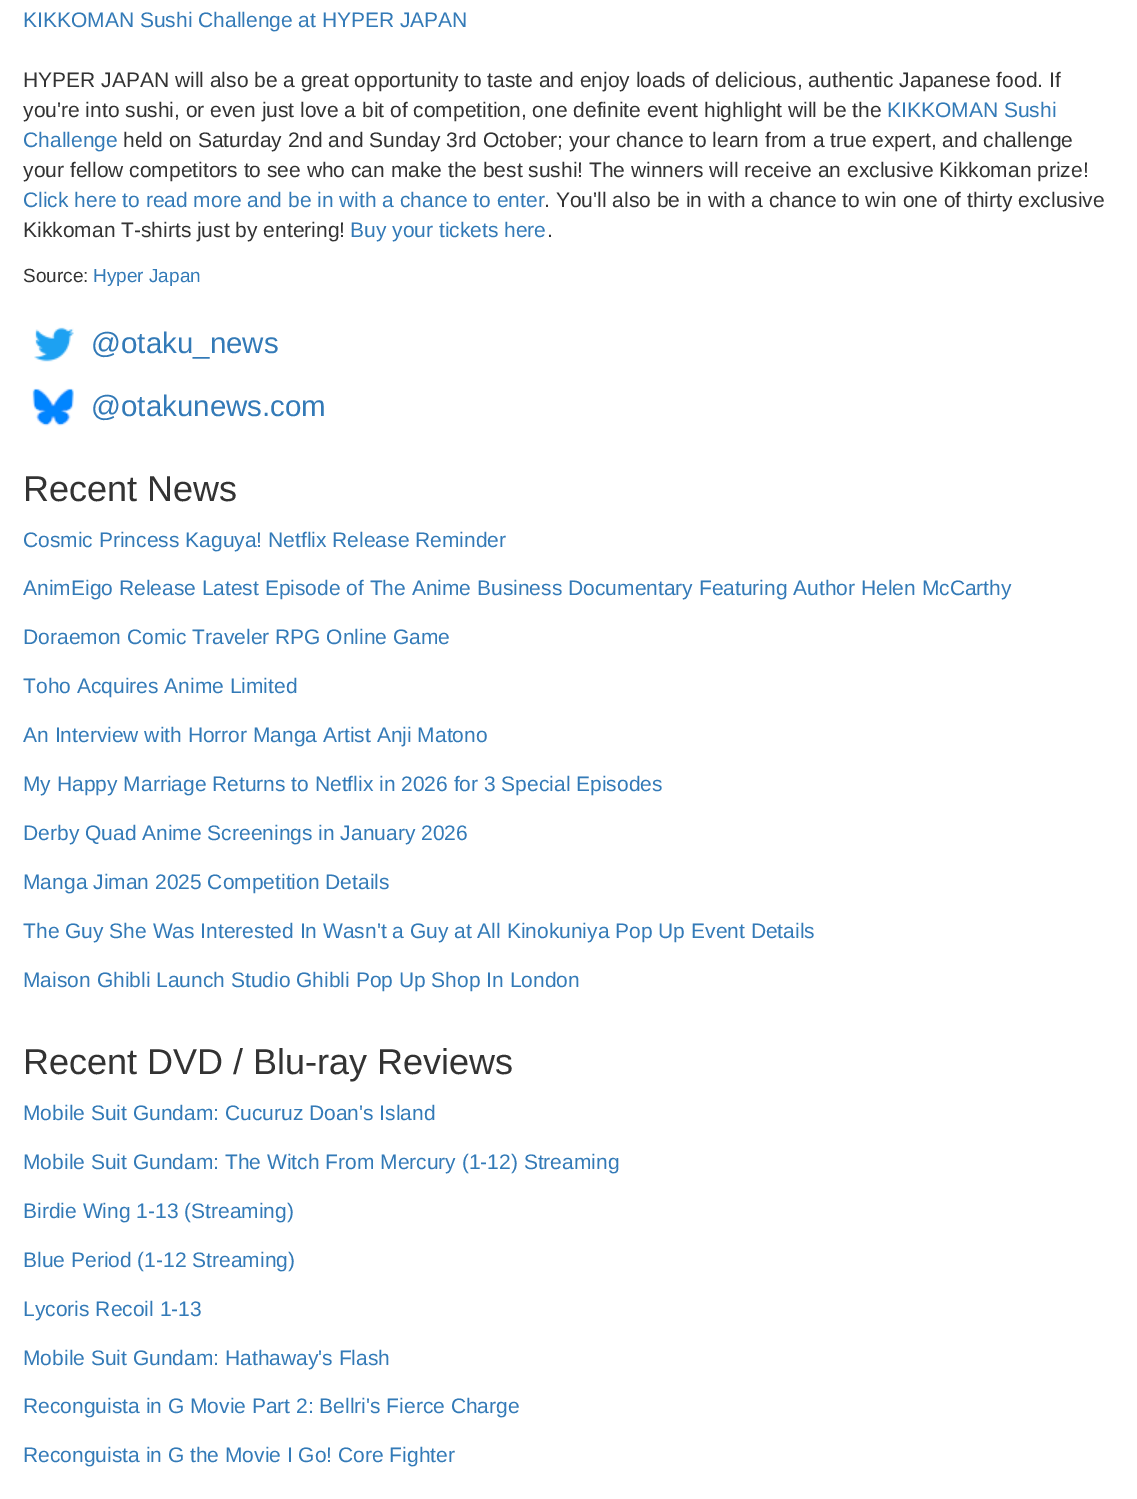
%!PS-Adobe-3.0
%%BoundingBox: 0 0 1137 1499
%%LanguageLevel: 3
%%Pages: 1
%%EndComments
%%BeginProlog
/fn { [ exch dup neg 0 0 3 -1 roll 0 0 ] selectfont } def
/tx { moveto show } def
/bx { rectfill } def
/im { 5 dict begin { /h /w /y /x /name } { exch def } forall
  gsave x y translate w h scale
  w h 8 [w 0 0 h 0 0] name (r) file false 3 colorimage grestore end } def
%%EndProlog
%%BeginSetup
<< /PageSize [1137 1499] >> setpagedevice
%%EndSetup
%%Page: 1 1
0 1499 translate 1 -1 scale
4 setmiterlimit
1 setgray
0 0 1137 1499 bx
/LiberationSans-Regular 21 fn
0.2 0.478 0.718 setrgbcolor
(KIKKOMAN Sushi Challenge at HYPER JAPAN) 23 27 tx
0.2 setgray
(HYPER JAPAN will also be a great opportunity to taste and enjoy loads of delicious, authentic Japanese food. If) 23 87 tx
(you're into sushi, or even just love a bit of competition, one definite event highlight will be the) 23 117 tx
0.2 0.478 0.718 setrgbcolor
(KIKKOMAN Sushi) 887 117 tx
(Challenge) 23 147 tx
0.2 setgray
(held on Saturday 2nd and Sunday 3rd October; your chance to learn from a true expert, and challenge) 123 147 tx
(your fellow competitors to see who can make the best sushi! The winners will receive an exclusive Kikkoman prize!) 23 177 tx
0.2 0.478 0.718 setrgbcolor
(Click here to read more and be in with a chance to enter) 23 207 tx
0.2 setgray
(. You'll also be in with a chance to win one of thirty exclusive) 544 207 tx
(Kikkoman T-shirts just by entering!) 23 237 tx
0.2 0.478 0.718 setrgbcolor
(Buy your tickets here) 350 237 tx
0.2 setgray
(.) 547 237 tx
/LiberationSans-Regular 19 fn
(Source:) 23 282 tx
0.2 0.478 0.718 setrgbcolor
(Hyper Japan) 93 282 tx
(image0.raw) 34 327 40 35 im
/LiberationSans-Regular 29.5 fn
(@otaku_news) 91 353 tx
(image1.raw) 32 388 42 38 im
(@otakunews.com) 91 416 tx
/LiberationSans-Regular 36 fn
0.2 setgray
(Recent News) 23 501 tx
/LiberationSans-Regular 21 fn
0.2 0.478 0.718 setrgbcolor
(Cosmic Princess Kaguya! Netflix Release Reminder) 23 547 tx
(AnimEigo Release Latest Episode of The Anime Business Documentary Featuring Author Helen McCarthy) 23 595 tx
(Doraemon Comic Traveler RPG Online Game) 23 644 tx
(Toho Acquires Anime Limited) 23 693 tx
(An Interview with Horror Manga Artist Anji Matono) 23 742 tx
(My Happy Marriage Returns to Netflix in 2026 for 3 Special Episodes) 23 791 tx
(Derby Quad Anime Screenings in January 2026) 23 840 tx
(Manga Jiman 2025 Competition Details) 23 889 tx
(The Guy She Was Interested In Wasn't a Guy at All Kinokuniya Pop Up Event Details) 23 938 tx
(Maison Ghibli Launch Studio Ghibli Pop Up Shop In London) 23 987 tx
/LiberationSans-Regular 36 fn
0.2 setgray
(Recent DVD / Blu-ray Reviews) 23 1074 tx
/LiberationSans-Regular 21 fn
0.2 0.478 0.718 setrgbcolor
(Mobile Suit Gundam: Cucuruz Doan's Island) 23 1120 tx
(Mobile Suit Gundam: The Witch From Mercury \(1-12\) Streaming) 23 1169 tx
(Birdie Wing 1-13 \(Streaming\)) 23 1218 tx
(Blue Period \(1-12 Streaming\)) 23 1267 tx
(Lycoris Recoil 1-13) 23 1316 tx
(Mobile Suit Gundam: Hathaway's Flash) 23 1365 tx
(Reconguista in G Movie Part 2: Bellri's Fierce Charge) 23 1413 tx
(Reconguista in G the Movie I Go! Core Fighter) 23 1462 tx
showpage
%%EOF
